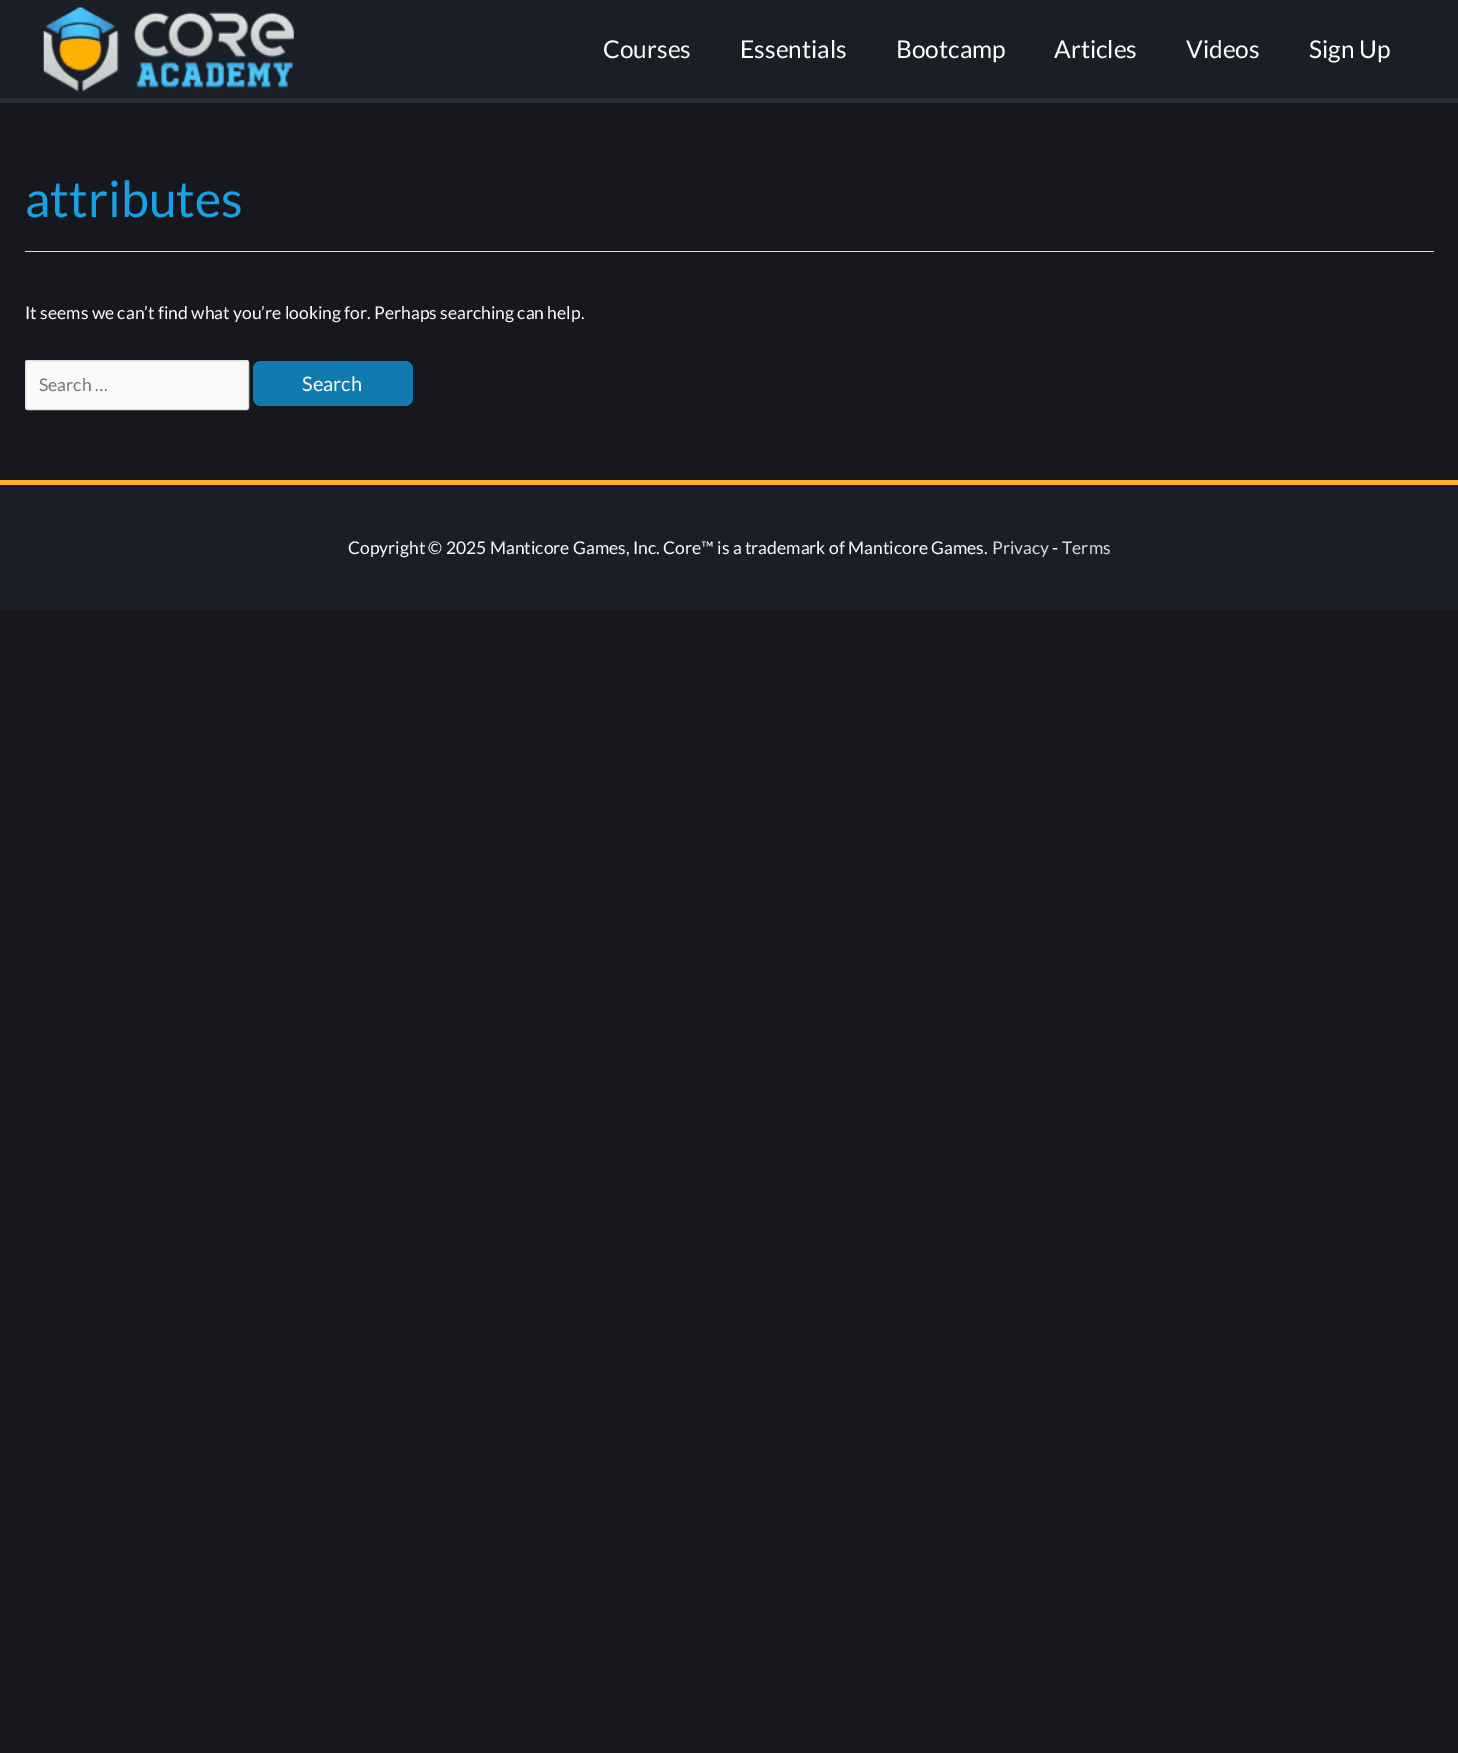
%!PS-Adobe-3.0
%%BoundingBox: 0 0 1458 1753
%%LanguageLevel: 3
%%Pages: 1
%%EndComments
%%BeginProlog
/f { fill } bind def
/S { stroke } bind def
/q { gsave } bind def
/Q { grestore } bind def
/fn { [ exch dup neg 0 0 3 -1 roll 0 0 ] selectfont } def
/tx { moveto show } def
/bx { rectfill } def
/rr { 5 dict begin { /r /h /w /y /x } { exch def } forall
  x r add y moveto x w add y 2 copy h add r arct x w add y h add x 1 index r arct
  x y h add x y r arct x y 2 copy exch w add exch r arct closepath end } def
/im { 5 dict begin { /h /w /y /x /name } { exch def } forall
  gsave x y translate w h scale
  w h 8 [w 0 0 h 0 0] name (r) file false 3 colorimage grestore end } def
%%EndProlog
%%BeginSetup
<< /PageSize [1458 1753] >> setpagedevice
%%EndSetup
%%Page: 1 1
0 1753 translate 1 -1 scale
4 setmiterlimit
0.086 0.094 0.118 setrgbcolor
0 0 1458 1753 bx
0.102 0.118 0.153 setrgbcolor
0 0 1458 98 bx
0.169 0.176 0.204 setrgbcolor
0 98 1458 5 bx
(image0.raw) 43 7 251 85 im
/Lato-Regular 24.5 fn
1 setgray
(Courses) 603 58 tx
(Essentials) 740 58 tx
(Bootcamp) 896 58 tx
(Articles) 1054 58 tx
(Videos) 1186 58 tx
(Sign Up) 1309 58 tx
0.867 setgray
25 251 1409 1 bx
/Lato-Regular 50 fn
0.09 0.631 0.902 setrgbcolor
(attributes) 25 217 tx
/Lato-Regular 17.5 fn
1 setgray
(It seems we can’t find what you’re looking for. Perhaps searching can help.) 25 319 tx
0.98 setgray
25.5 360.5 223 49 2 rr q f Q
0.867 setgray
S
0.459 setgray
(Search …) 39 391 tx
0.067 0.482 0.69 setrgbcolor
253 361 160 45 8 rr f
/Lato-Regular 20 fn
1 setgray
(Search) 302 391 tx
0.988 0.698 0.149 setrgbcolor
0 480 1458 5 bx
0.106 0.118 0.157 setrgbcolor
0 485 1458 125 bx
/Lato-Regular 17.5 fn
1 setgray
(Copyright © 2025 Manticore Games, Inc. Core™ is a trademark of Manticore Games.) 348 554 tx
0.867 setgray
(Privacy) 992 554 tx
1 setgray
(-) 1052 554 tx
0.867 setgray
(Terms) 1062 554 tx
showpage
%%EOF
